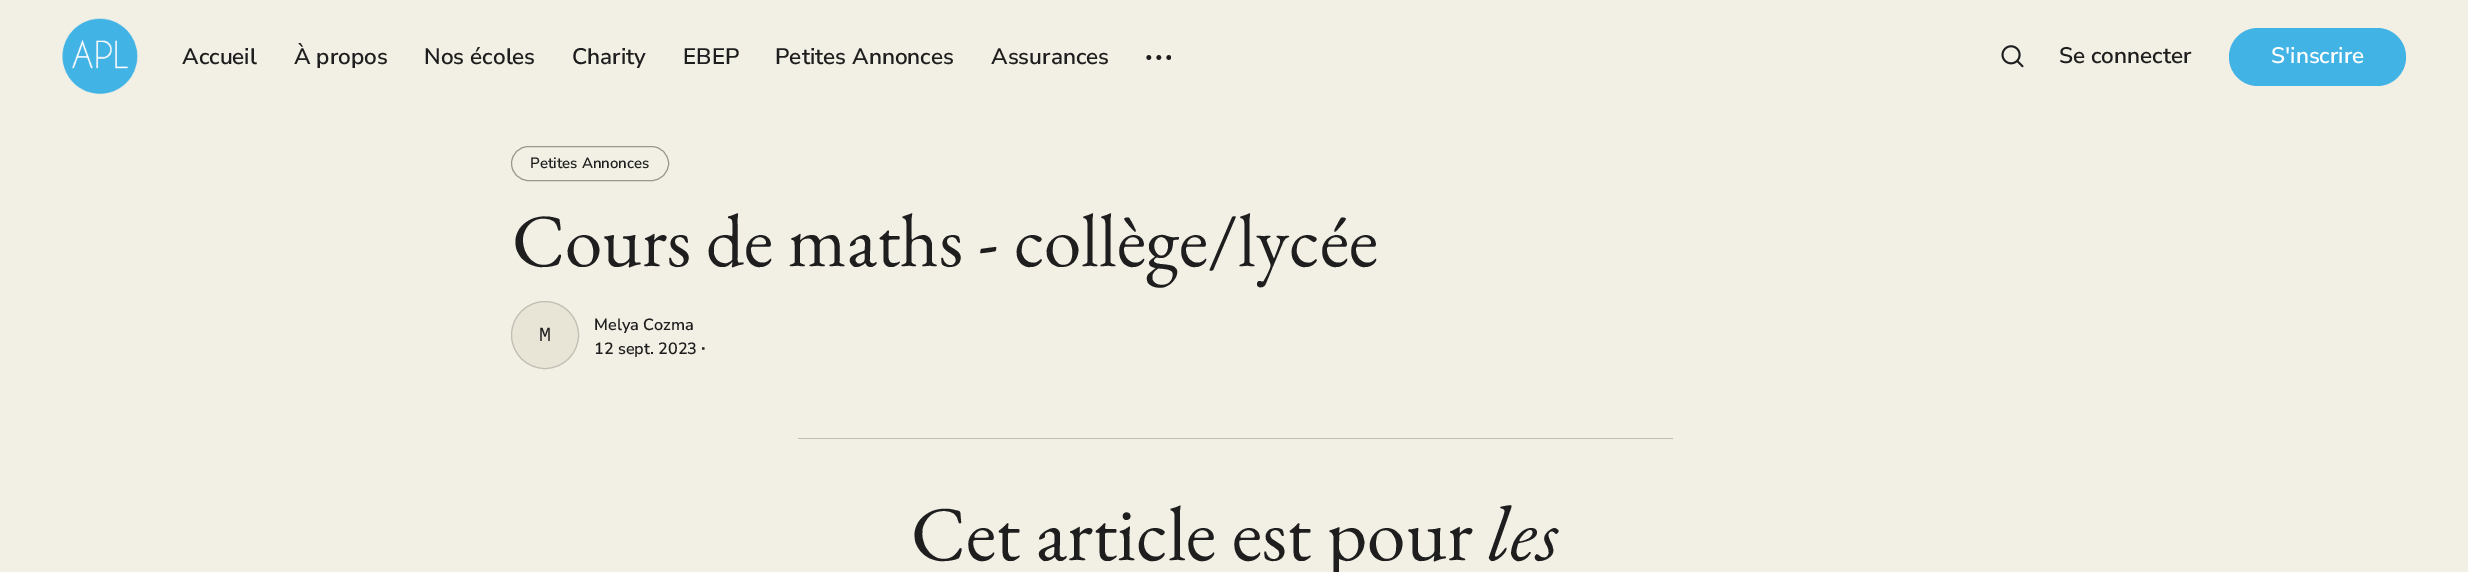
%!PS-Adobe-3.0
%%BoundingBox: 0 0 2468 572
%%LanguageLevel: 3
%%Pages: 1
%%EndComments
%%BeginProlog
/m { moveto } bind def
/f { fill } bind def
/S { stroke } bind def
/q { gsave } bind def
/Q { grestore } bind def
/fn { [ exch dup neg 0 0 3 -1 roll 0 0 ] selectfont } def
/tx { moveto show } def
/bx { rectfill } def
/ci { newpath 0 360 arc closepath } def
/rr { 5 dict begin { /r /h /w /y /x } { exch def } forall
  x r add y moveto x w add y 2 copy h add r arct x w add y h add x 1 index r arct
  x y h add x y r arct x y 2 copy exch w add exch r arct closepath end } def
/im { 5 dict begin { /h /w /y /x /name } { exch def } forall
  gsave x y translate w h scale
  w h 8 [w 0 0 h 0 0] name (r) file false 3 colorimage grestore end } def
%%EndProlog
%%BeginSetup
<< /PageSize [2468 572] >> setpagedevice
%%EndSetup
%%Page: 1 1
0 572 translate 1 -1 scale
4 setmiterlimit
0.949 0.937 0.894 setrgbcolor
0 0 2468 572 bx
(image0.raw) 62 18 76 76 im
/NunitoSans-SemiBold 22.5 fn
0.118 setgray
(Accueil) 182 64 tx
(À propos) 294 64 tx
(Nos écoles) 424 64 tx
(Charity) 572 64 tx
(EBEP) 683 64 tx
(Petites Annonces) 775 64 tx
(Assurances) 991 64 tx
(image1.raw) 1146 55 25 5 im
(image2.raw) 2001 45 23 23 im
(Se connecter) 2059 63 tx
0.259 0.702 0.898 setrgbcolor
2229 28 177 58 29 rr f
1 setgray
(S'inscrire) 2271 63 tx
0.6 0.596 0.561 setrgbcolor
511.5 146.5 157 34 17 rr S
/NunitoSans-SemiBold 15 fn
0.118 setgray
(Petites Annonces) 530 168 tx
/EBGaramond-Regular 75 fn
(Cours de maths - collège/lycée) 512 266 tx
0.91 0.898 0.839 setrgbcolor
545 335 33.5 ci q f Q
0.749 0.745 0.702 setrgbcolor
S
/LiberationMono-Regular 20 fn
0.118 setgray
539 341 m 5 0 (M) ashow
/NunitoSans-SemiBold 16.25 fn
(Melya Cozma) 594 330 tx
(12 sept. 2023) 594 354 tx
/LiberationSans-Bold 16.25 fn
(∙) 701 354 tx
0.749 0.745 0.702 setrgbcolor
798 438 875 1 bx
/EBGaramond-Regular 77.5 fn
0.118 setgray
(Cet article est pour) 911 560 tx
/EBGaramond-Italic 77.5 fn
(les) 1488 560 tx
showpage
%%EOF
